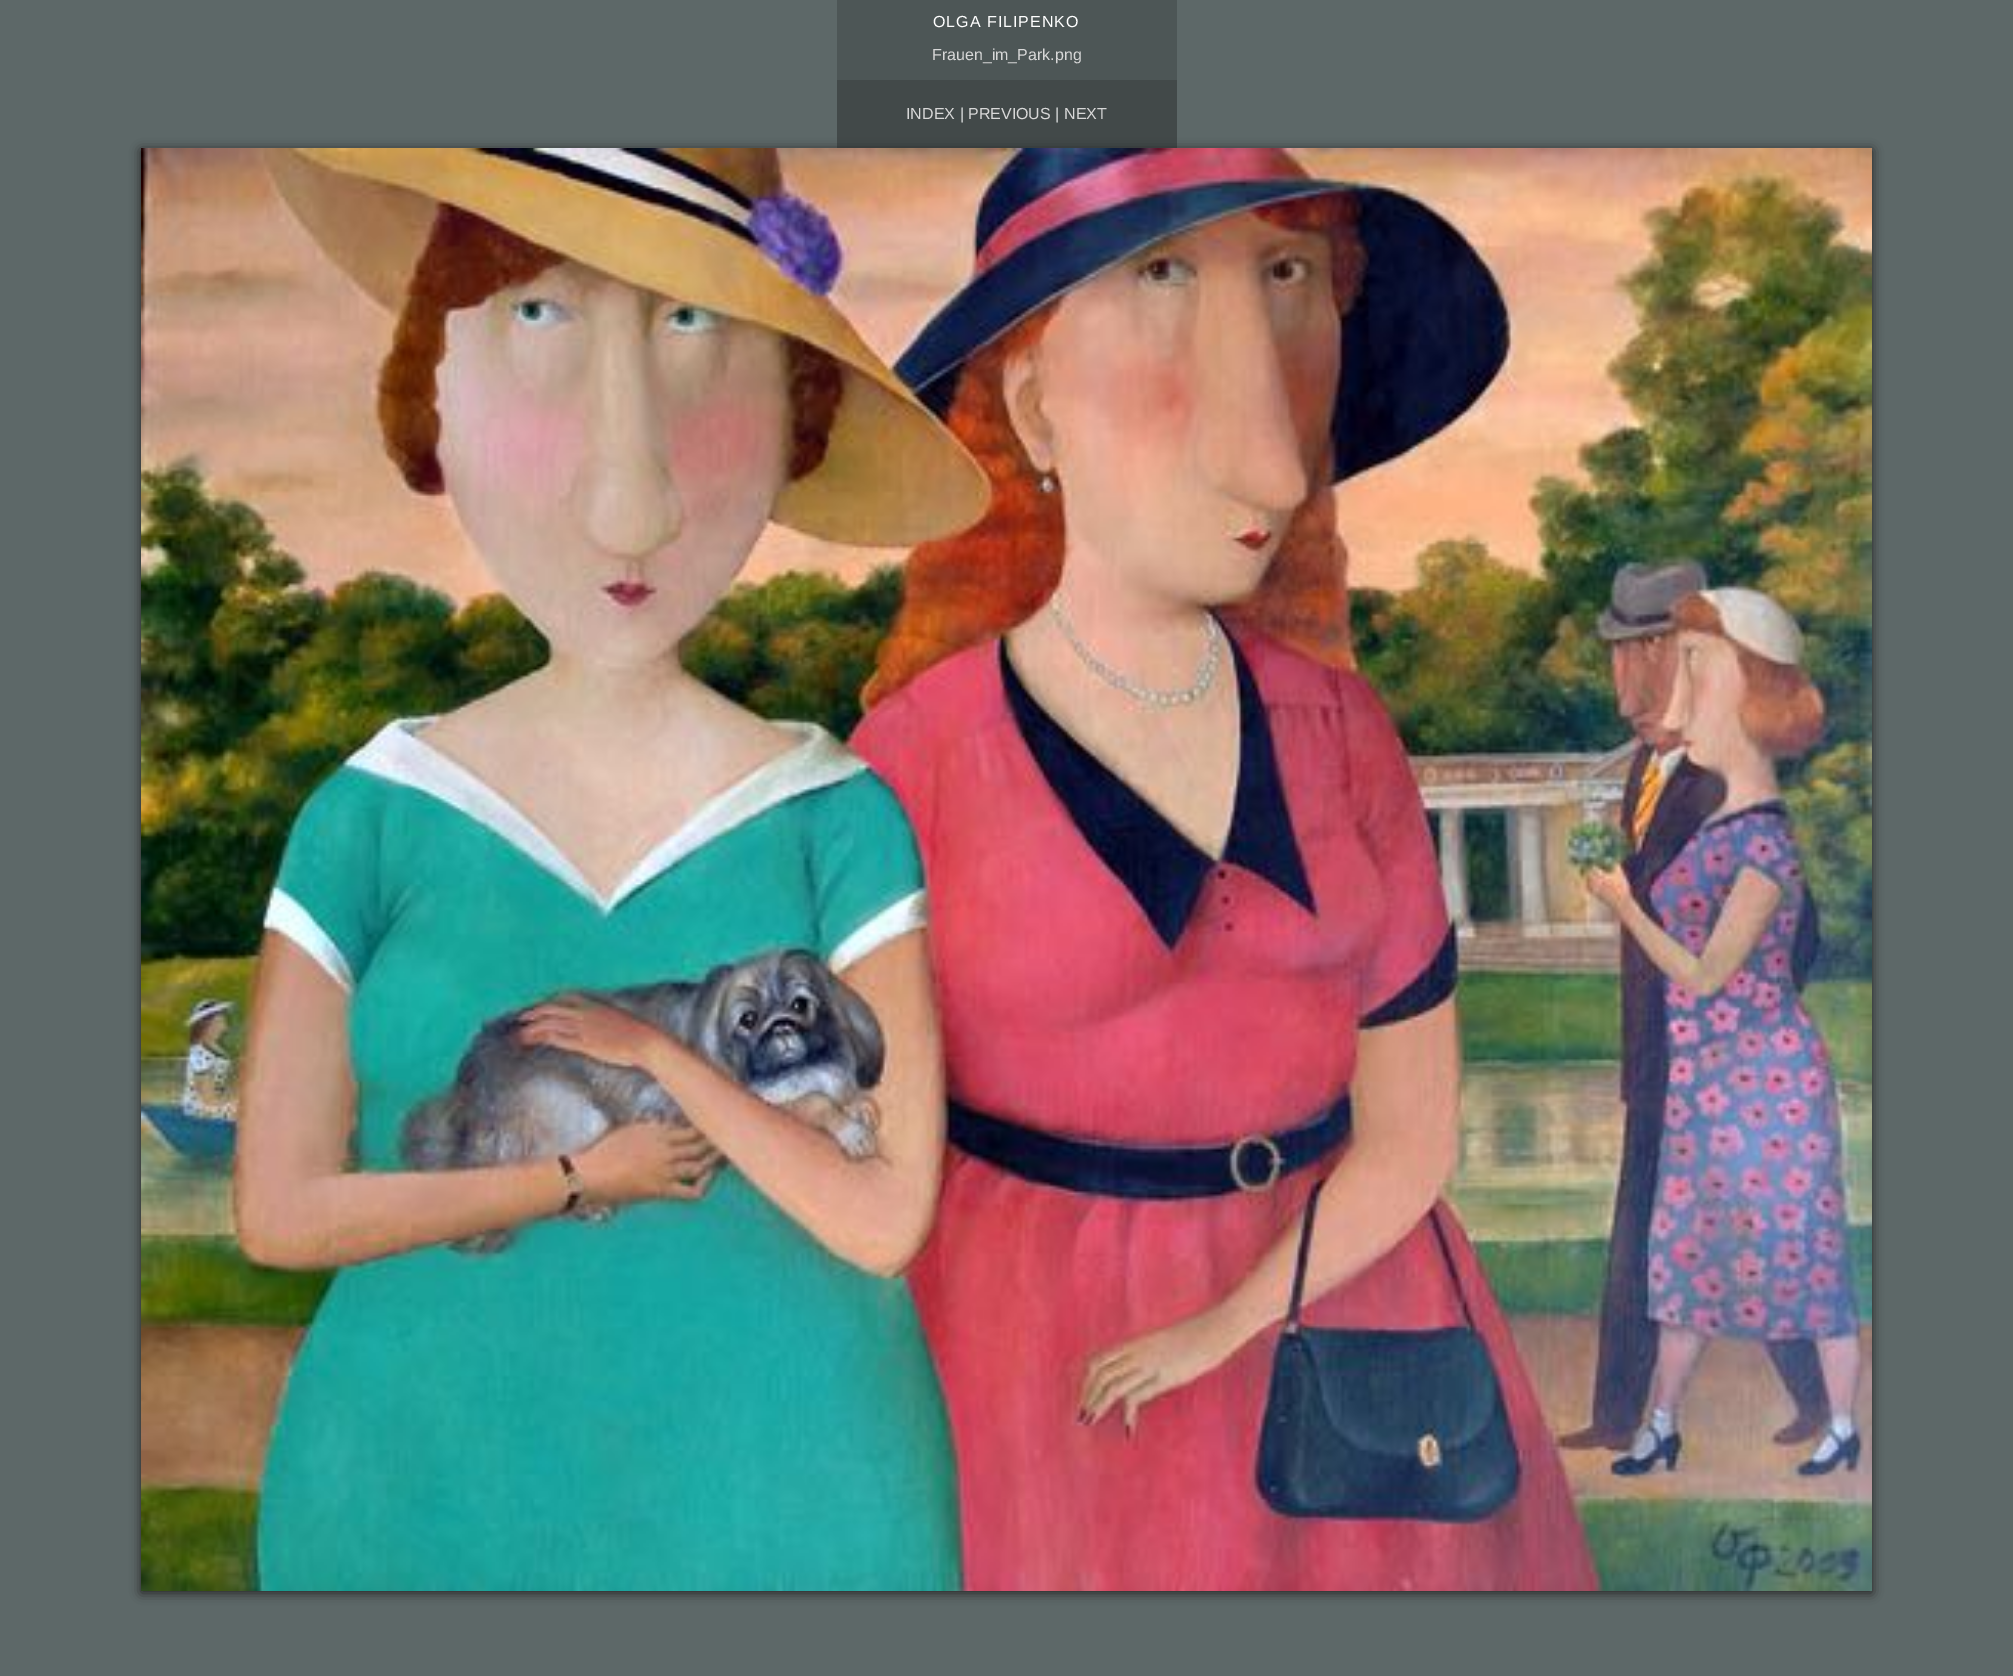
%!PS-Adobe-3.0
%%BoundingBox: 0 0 2013 1676
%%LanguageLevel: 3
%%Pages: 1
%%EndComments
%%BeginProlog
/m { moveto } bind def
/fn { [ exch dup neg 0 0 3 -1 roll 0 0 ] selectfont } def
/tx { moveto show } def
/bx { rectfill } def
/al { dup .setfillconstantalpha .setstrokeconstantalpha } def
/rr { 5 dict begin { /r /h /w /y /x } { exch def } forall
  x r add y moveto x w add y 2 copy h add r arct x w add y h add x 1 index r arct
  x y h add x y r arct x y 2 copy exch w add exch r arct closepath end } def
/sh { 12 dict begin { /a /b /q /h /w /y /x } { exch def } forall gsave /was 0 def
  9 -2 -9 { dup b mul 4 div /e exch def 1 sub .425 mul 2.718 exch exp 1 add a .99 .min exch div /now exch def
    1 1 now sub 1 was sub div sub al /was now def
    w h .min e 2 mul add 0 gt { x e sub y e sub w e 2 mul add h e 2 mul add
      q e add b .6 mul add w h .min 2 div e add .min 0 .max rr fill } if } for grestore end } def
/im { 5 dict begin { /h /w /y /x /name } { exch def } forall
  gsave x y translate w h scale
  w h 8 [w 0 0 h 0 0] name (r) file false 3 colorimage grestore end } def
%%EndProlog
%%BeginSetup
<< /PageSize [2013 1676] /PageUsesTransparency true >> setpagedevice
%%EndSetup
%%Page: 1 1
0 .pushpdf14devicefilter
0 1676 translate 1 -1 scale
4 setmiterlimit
0.365 0.408 0.408 setrgbcolor
0 0 2013 1676 bx
0.302 0.337 0.337 setrgbcolor
837 0 340 80 bx
/LiberationSans-Regular 16 fn
1 setgray
933 27 m 1 0 (OLGA FILIPENKO) ashow
0.847 setgray
(Frauen_im_Park.png) 932 60 tx
0.259 0.286 0.286 setrgbcolor
837 80 340 68 bx
0.847 setgray
(INDEX) 906 119 tx
0.894 0.902 0.902 setrgbcolor
(|) 960 119 tx
0.847 setgray
(PREVIOUS) 968 119 tx
0.894 0.902 0.902 setrgbcolor
(|) 1055 119 tx
0.847 setgray
(NEXT) 1064 119 tx
0.137 setgray
141 150 1731 1443 0 5.5 1 sh
(image0.raw) 141 148 1731 1443 im
.poppdf14devicefilter showpage
%%EOF
